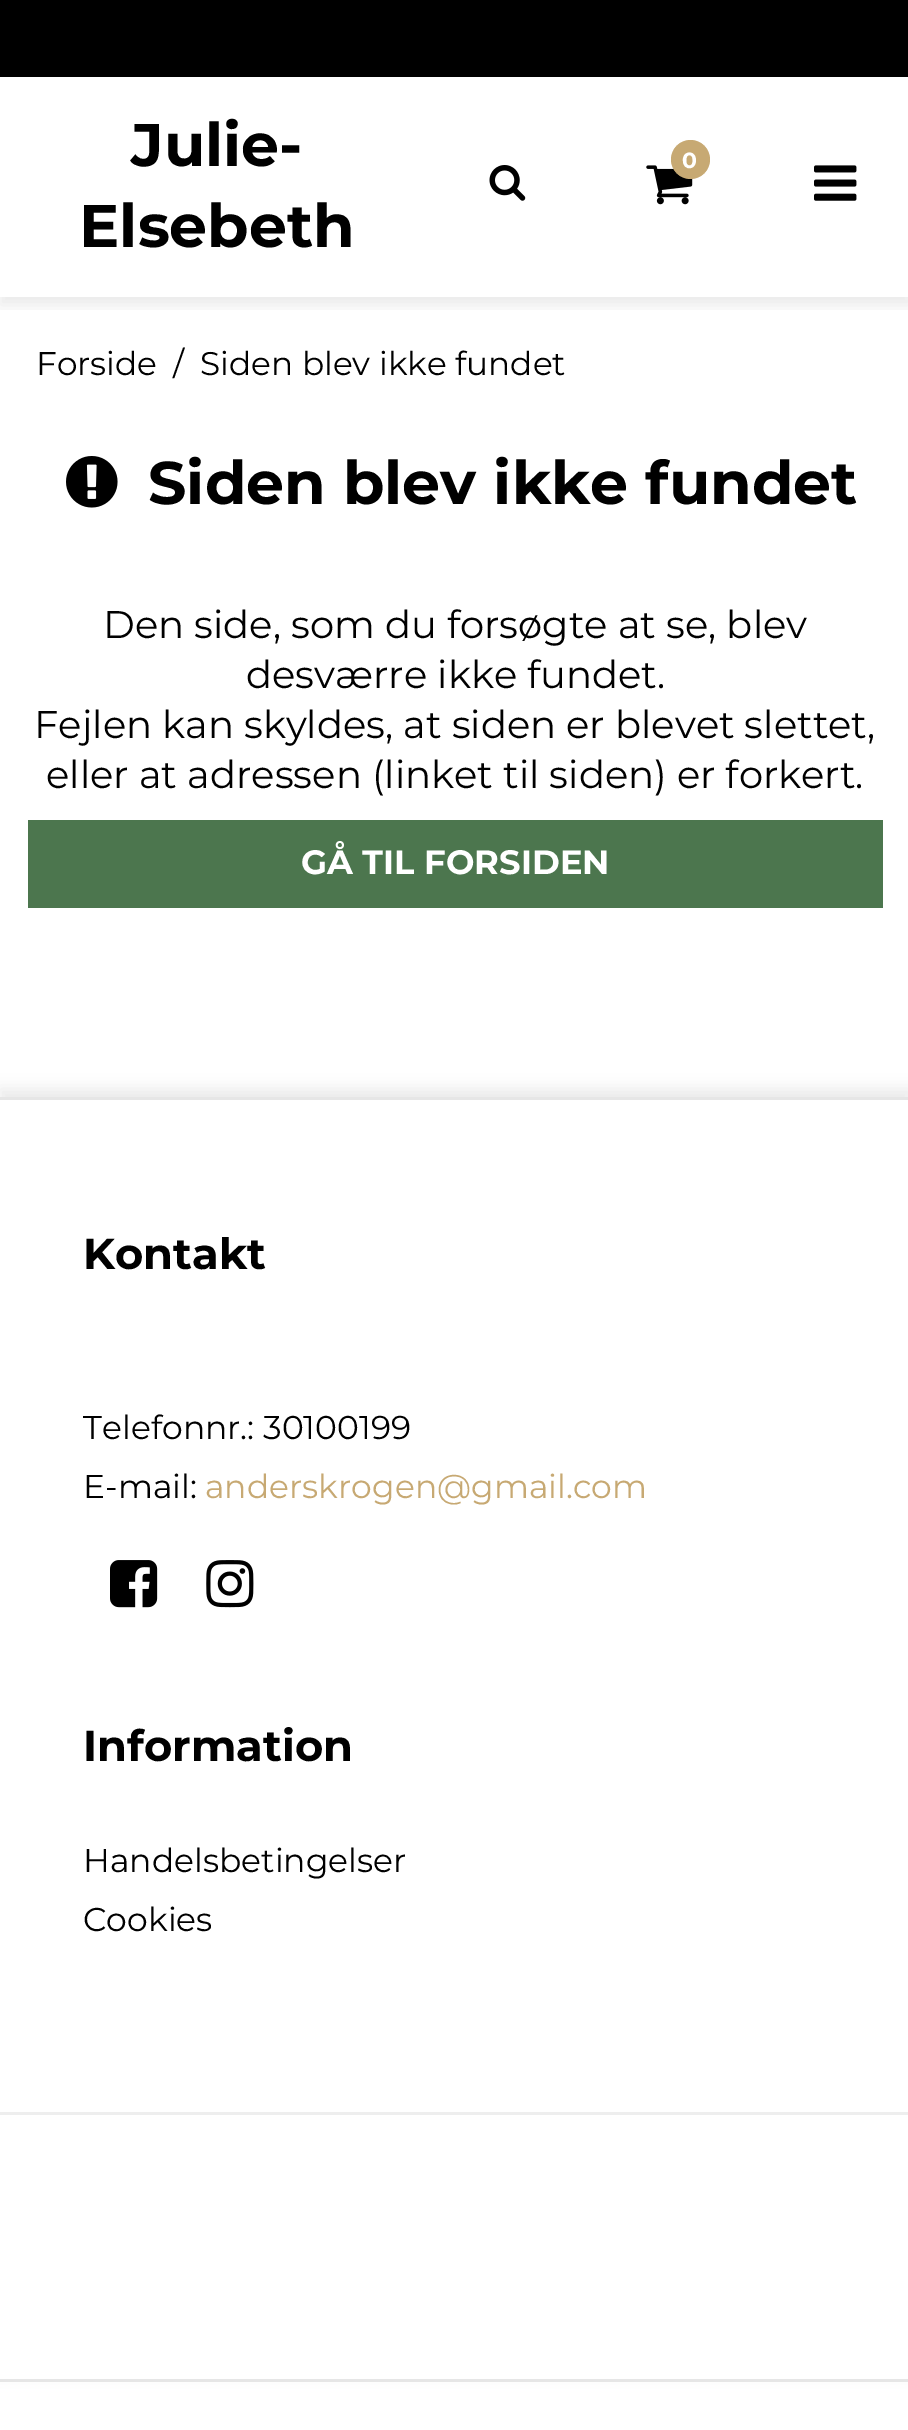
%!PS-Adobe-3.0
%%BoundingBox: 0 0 908 2430
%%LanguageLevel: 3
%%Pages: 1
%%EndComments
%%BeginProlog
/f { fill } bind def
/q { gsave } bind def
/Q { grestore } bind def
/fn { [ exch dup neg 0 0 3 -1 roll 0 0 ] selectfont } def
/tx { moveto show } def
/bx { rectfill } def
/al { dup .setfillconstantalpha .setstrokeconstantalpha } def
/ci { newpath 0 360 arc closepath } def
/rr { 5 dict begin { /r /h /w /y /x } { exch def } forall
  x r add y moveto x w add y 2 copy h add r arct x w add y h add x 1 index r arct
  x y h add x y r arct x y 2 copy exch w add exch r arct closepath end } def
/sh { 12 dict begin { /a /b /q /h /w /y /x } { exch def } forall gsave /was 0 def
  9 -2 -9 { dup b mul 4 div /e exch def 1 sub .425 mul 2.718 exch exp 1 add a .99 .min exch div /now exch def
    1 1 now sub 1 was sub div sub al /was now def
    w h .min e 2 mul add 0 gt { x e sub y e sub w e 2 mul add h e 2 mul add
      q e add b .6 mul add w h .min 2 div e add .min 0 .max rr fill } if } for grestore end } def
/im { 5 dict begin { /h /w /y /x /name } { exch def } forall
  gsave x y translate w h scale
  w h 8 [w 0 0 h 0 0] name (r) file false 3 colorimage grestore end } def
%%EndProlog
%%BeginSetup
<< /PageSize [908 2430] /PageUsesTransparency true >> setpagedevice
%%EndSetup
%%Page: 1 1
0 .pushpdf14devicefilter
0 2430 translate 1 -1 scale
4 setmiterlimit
1 setgray
0 0 908 2430 bx
0 setgray
0 0 908 77 bx
q
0 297 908 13 rectclip
0 85 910 220 0 7 0.08 sh
Q
/Montserrat-Bold 60.2 fn
(Julie-) 131 166 tx
(Elsebeth) 79 247 tx
(image0.raw) 646 165 47 40 im
0.78 0.663 0.451 setrgbcolor
690.5 159.5 19.5 ci f
/Montserrat-Bold 22 fn
1 setgray
(0) 682 168 tx
(image1.raw) 489 165 37 36 im
(image2.raw) 814 165 43 36 im
/Montserrat-Regular 32.75 fn
0 setgray
(Forside) 36 375 tx
(/) 173 375 tx
(Siden blev ikke fundet) 200 375 tx
(image3.raw) 66 456 52 52 im
/Montserrat-Bold 60.2 fn
(Siden blev ikke fundet) 148 504 tx
/Montserrat-Regular 38.5 fn
(Den side, som du forsøgte at se, blev) 103 638 tx
(desværre ikke fundet.) 246 688 tx
(Fejlen kan skyldes, at siden er blevet slettet,) 34 738 tx
(eller at adressen \(linket til siden\) er forkert.) 46 788 tx
0.298 0.463 0.306 setrgbcolor
28 820 855 88 bx
/Montserrat-Bold 33.75 fn
1 setgray
(GÅ TIL FORSIDEN) 301 874 tx
0 setgray
0 1089 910 1284 0 7 0.08 sh
1 setgray
0 1100 908 1279 bx
0.902 setgray
0 1097 908 3 bx
0 2379 908 3 bx
/Montserrat-Bold 43.25 fn
0 setgray
(Kontakt) 83 1269 tx
/Montserrat-Regular 33 fn
(Telefonnr.: 30100199) 83 1439 tx
(E-mail:) 83 1498 tx
0.78 0.663 0.451 setrgbcolor
(anderskrogen@gmail.com) 205 1498 tx
(image4.raw) 110 1560 48 48 im
(image5.raw) 206 1560 48 48 im
/Montserrat-Bold 43.25 fn
0 setgray
(Information) 83 1761 tx
/Montserrat-Regular 33 fn
(Handelsbetingelser) 83 1872 tx
(Cookies) 83 1931 tx
0.933 setgray
0 2112 908 3 bx
.poppdf14devicefilter showpage
%%EOF
